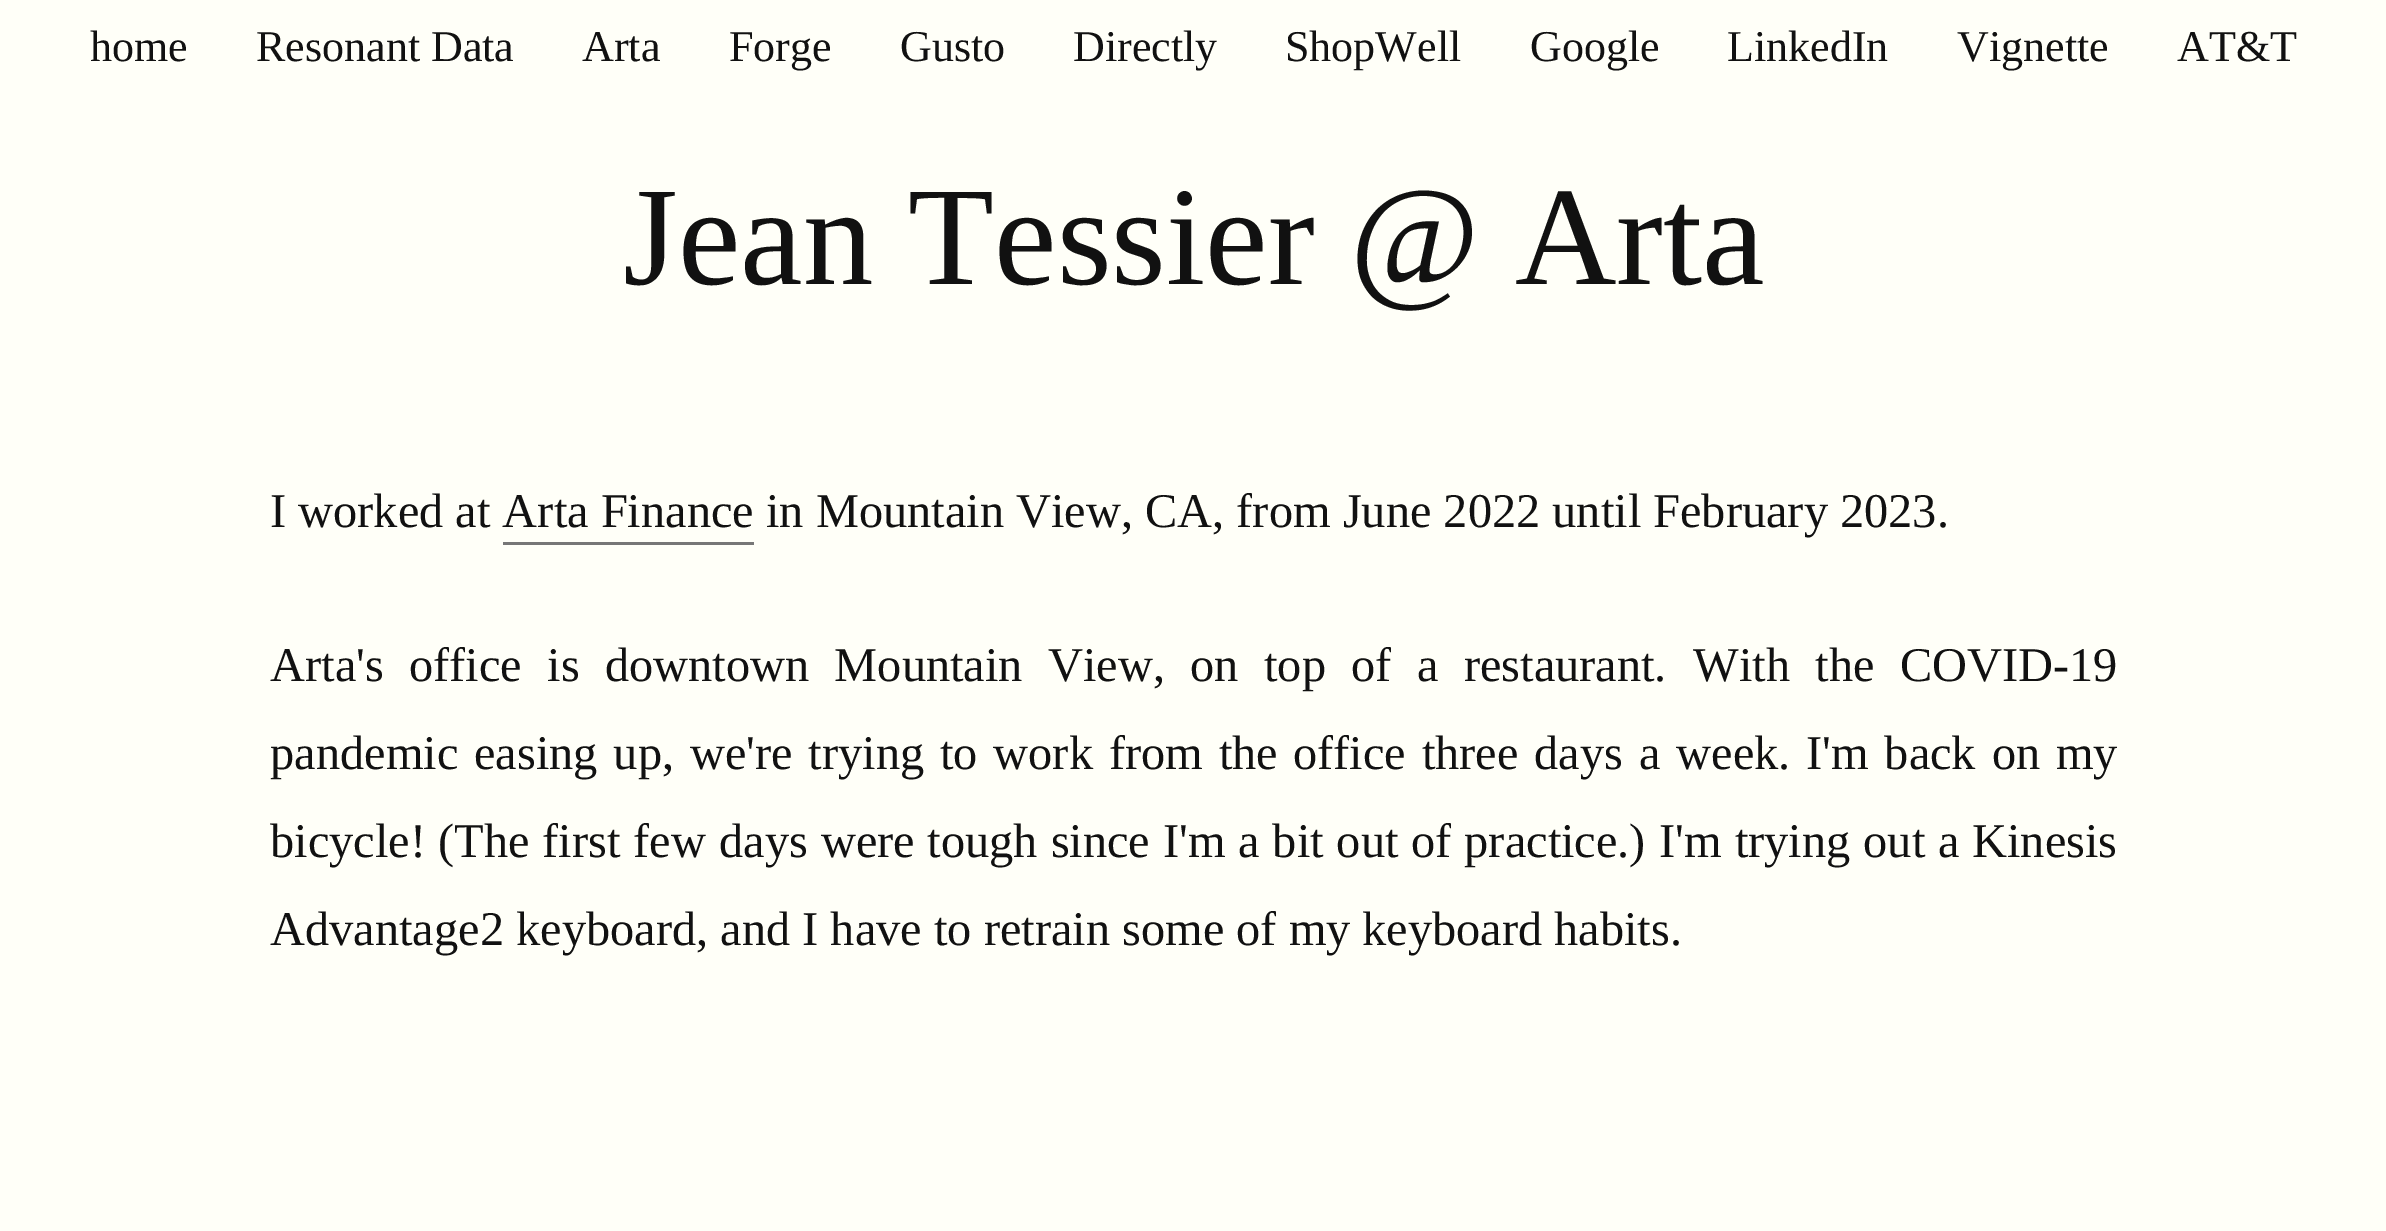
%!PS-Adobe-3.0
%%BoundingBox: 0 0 2386 1231
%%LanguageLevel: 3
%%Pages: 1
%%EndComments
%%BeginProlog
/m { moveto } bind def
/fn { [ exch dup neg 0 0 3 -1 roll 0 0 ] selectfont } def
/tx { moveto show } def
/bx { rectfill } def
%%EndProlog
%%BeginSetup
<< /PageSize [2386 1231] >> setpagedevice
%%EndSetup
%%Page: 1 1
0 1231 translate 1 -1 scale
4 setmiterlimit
1 1 0.973 setrgbcolor
0 0 2386 1231 bx
/LiberationSerif-Regular 44 fn
0.067 setgray
(home) 90 61 tx
(Resonant Data) 256 61 tx
(Arta) 582 61 tx
(Forge) 729 61 tx
(Gusto) 900 61 tx
(Directly) 1073 61 tx
(ShopWell) 1285 61 tx
(Google) 1530 61 tx
(LinkedIn) 1727 61 tx
(Vignette) 1957 61 tx
(AT&T) 2177 61 tx
/LiberationSerif-Regular 140.75 fn
(Jean Tessier @ Arta) 623 284 tx
/LiberationSerif-Regular 48.4 fn
(I worked at Arta Finance in Mountain View, CA, from June 2022 until February 2023.) 270 527 tx
0.467 setgray
503 542 251 3 bx
0.067 setgray
270 681 m 13.25 0 32 (Arta's office is downtown Mountain View, on top of a restaurant.) widthshow
1693 681 m 13.25 0 32 (With the COVID-19) widthshow
270 769 m 3.75 0 32 (pandemic easing up, we're trying to work from the) widthshow
1293 769 m 3.75 0 32 (office three days a week.) widthshow
1806 769 m 3.75 0 32 (I'm back on my) widthshow
(bicycle!) 270 857 tx
438 857 m 0.75 0 32 (\(The first few) widthshow
719 857 m 0.75 0 32 (days were tough since I'm a bit out of practice.\)) widthshow
1659 857 m 1 0 32 (I'm trying out a) widthshow
(Kinesis) 1972 857 tx
(Advantage2 keyboard, and I have to retrain some of my) 270 945 tx
(keyboard habits.) 1362 945 tx
showpage
%%EOF
